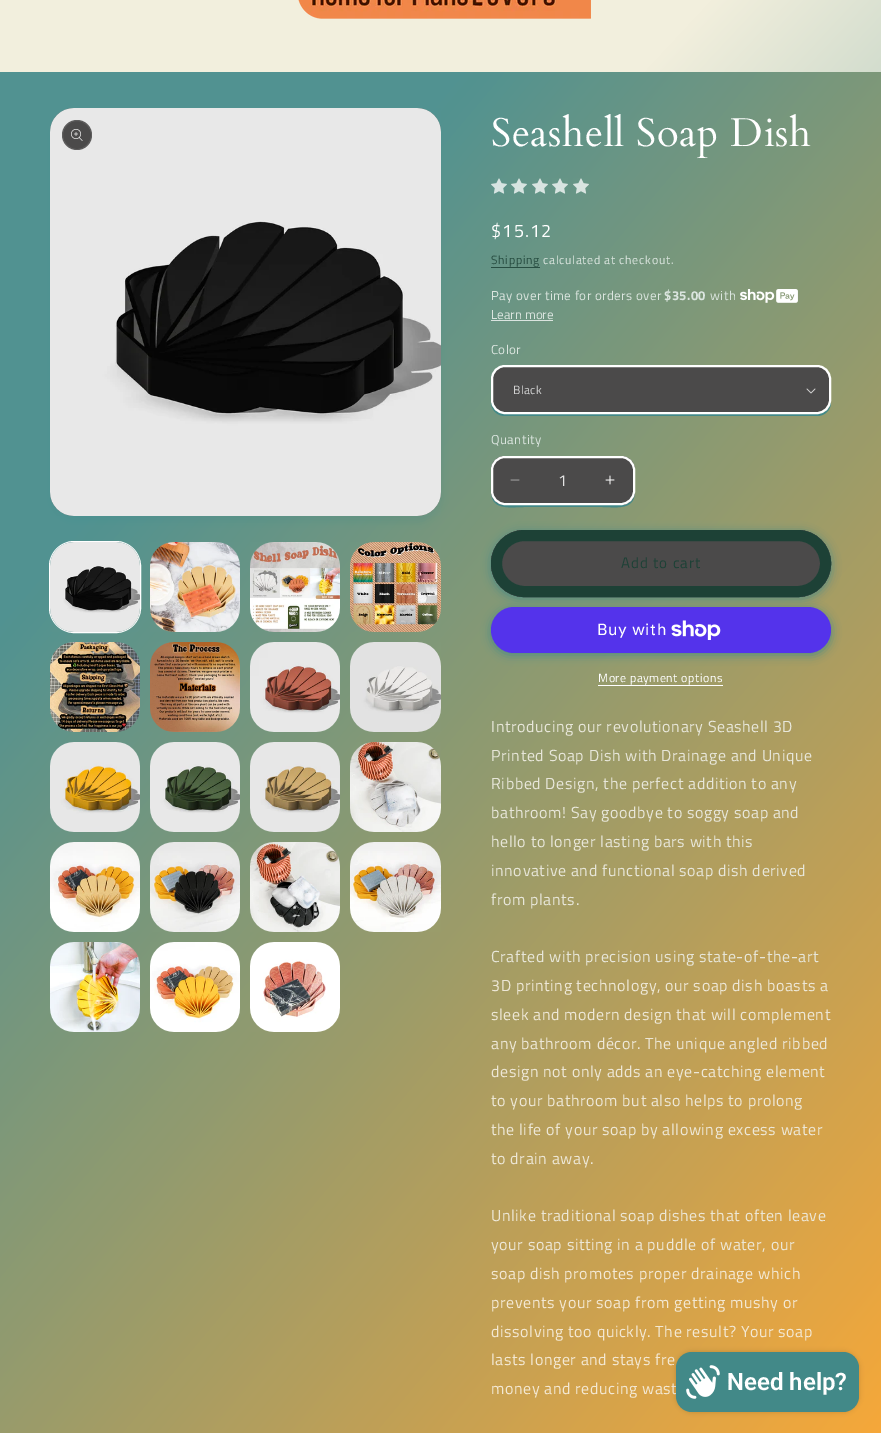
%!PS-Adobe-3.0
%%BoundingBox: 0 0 881 1433
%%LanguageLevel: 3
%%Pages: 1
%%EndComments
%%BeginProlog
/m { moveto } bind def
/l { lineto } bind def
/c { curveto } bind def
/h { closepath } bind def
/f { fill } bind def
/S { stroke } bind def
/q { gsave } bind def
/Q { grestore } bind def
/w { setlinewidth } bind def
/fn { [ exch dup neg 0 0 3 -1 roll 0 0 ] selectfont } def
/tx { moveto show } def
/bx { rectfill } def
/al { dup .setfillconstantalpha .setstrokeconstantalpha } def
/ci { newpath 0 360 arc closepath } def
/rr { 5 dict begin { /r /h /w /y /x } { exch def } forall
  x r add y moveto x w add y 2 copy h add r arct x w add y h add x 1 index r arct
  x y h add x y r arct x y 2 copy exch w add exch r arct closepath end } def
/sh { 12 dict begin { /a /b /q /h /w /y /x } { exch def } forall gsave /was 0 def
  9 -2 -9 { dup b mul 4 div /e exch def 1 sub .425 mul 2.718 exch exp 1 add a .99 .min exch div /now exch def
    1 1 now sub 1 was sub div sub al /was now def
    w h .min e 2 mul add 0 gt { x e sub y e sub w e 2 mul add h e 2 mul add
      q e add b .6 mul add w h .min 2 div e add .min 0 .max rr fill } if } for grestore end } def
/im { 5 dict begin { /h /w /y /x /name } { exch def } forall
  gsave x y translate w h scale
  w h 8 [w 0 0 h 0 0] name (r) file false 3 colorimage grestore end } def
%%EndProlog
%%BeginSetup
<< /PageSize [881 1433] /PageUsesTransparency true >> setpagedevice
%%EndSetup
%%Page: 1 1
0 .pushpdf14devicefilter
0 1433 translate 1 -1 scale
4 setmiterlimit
1 setgray
0 0 881 1433 bx
q 0 72 m 881 72 l 881 1433 l 0 1433 l h clip newpath
<< /ShadingType 2 /ColorSpace /DeviceRGB /Coords [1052 1229 -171 204] /Extend [true true] /Function << /FunctionType 3 /Domain [0 1] /Functions [<< /FunctionType 2 /Domain [0 1] /C0 [0.973 0.733 0.396] /C1 [0.467 0.667 0.667] /N 1 >> << /FunctionType 2 /Domain [0 1] /C0 [0.467 0.667 0.667] /C1 [0.467 0.667 0.667] /N 1 >>] /Bounds [0.75] /Encode [0 1 0 1] >> >> shfill Q
q 0 0 m 881 0 l 881 72 l 0 72 l h clip newpath
<< /ShadingType 2 /ColorSpace /DeviceRGB /Coords [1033 1269 -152 164] /Extend [true true] /Function << /FunctionType 3 /Domain [0 1] /Functions [<< /FunctionType 2 /Domain [0 1] /C0 [0.259 0.537 0.533] /C1 [0.259 0.537 0.533] /N 1 >> << /FunctionType 2 /Domain [0 1] /C0 [0.259 0.537 0.533] /C1 [0.949 0.937 0.867] /N 1 >> << /FunctionType 2 /Domain [0 1] /C0 [0.949 0.937 0.867] /C1 [0.949 0.937 0.867] /N 1 >>] /Bounds [0.06 0.68] /Encode [0 1 0 1 0 1] >> >> shfill Q
(image0.raw) 298 0 293 19 im
0.72 al
q 0 72 m 881 72 l 881 1433 l 0 1433 l h clip newpath
<< /ShadingType 2 /ColorSpace /DeviceRGB /Coords [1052 1229 -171 204] /Extend [true true] /Function << /FunctionType 3 /Domain [0 1] /Functions [<< /FunctionType 2 /Domain [0 1] /C0 [0.961 0.627 0.161] /C1 [0.259 0.537 0.533] /N 1 >> << /FunctionType 2 /Domain [0 1] /C0 [0.259 0.537 0.533] /C1 [0.259 0.537 0.533] /N 1 >>] /Bounds [0.75] /Encode [0 1 0 1] >> >> shfill Q
1 al
0.259 0.537 0.533 setrgbcolor
50 114 391 408 24 5 0.25 sh
(image1.raw) 50 108 391 408 im
0.294 0.29 0.29 setrgbcolor
77 135 15 ci f
0.1 al
1 setgray
77 135 14.5 ci S
1 al
(image2.raw) 71 129 12 12 im
49.5 541.5 91 91 24.5 rr S
(image3.raw) 50 542 90 90 im
(image4.raw) 150 542 90 90 im
(image5.raw) 250 542 90 90 im
(image6.raw) 350 542 91 90 im
(image7.raw) 50 642 90 90 im
(image8.raw) 150 642 90 90 im
(image9.raw) 250 642 90 90 im
(image10.raw) 350 642 91 90 im
(image11.raw) 50 742 90 90 im
(image12.raw) 150 742 90 90 im
(image13.raw) 250 742 90 90 im
(image14.raw) 350 742 91 90 im
(image15.raw) 50 842 90 90 im
(image16.raw) 150 842 90 90 im
(image17.raw) 250 842 90 90 im
(image18.raw) 350 842 91 90 im
(image19.raw) 50 942 90 90 im
(image20.raw) 150 942 90 90 im
(image21.raw) 250 942 90 90 im
/Cardo-Regular 40 fn
491 146 m 0.6 0 (Seashell Soap Dish) ashow
(image22.raw) 491 178 16 16 im
(image23.raw) 511 178 16 16 im
(image24.raw) 532 178 16 16 im
(image25.raw) 552 178 16 16 im
(image26.raw) 573 178 16 16 im
/TitilliumWeb-Regular 18 fn
491 237 m 1.25 0 ($15.12) ashow
/TitilliumWeb-Regular 12 fn
0.157 0.306 0.259 setrgbcolor
491 264 m 0.7 0 (Shipping) ashow
0.85 al
0.114 0.255 0.212 setrgbcolor
491 267 49 1 bx
1 al
0.859 0.898 0.875 setrgbcolor
543 264 m 0.7 0 (calculated at checkout.) ashow
/TitilliumWeb-Regular 13 fn
491 300 m 0.4 0 (Pay over time for orders over) ashow
/TitilliumWeb-Bold 13 fn
664 300 m 0.4 0 ($35.00) ashow
/TitilliumWeb-Regular 13 fn
710 300 m 0.4 0 (with) ashow
(image27.raw) 740 289 58 14 im
(Learn more) 491 319 tx
0.75 al
1 setgray
491 320 62 1 bx
1 al
0.859 0.898 0.875 setrgbcolor
491 354 m 0.4 0 (Color) ashow
0.259 0.537 0.533 setrgbcolor
491 400 m 491 402 l 491 410 497 416 505 416 c 817 416 l 825 416 831 410 831 402 c 831 400 l 831 408 825 414 817 414 c 505 414 l 497 414 491 408 491 400 c h f
0.294 0.29 0.29 setrgbcolor
493 367 336 45 12 rr f
(image28.raw) 806 388 10 6 im
1 setgray
2 w
492 366 338 47 13 rr S
/TitilliumWeb-Regular 12 fn
0.824 setgray
513 394 m 0.4 0 (Black) ashow
/TitilliumWeb-Regular 13 fn
0.859 0.898 0.875 setrgbcolor
491 444 m 0.4 0 (Quantity) ashow
0.259 0.537 0.533 setrgbcolor
491 491 m 491 511 510 507 524 507 c 602 507 l 616 507 635 511 635 491 c 635 499 629 505 621 505 c 505 505 l 497 505 491 499 491 491 c h f
0.294 0.29 0.29 setrgbcolor
491 456 144 49 14 rr f
(image29.raw) 510 479 10 2 im
(image30.raw) 605 475 10 10 im
1 setgray
492 457 142 47 13 rr S
/TitilliumWeb-Regular 16 fn
0.894 setgray
(1) 558 486 tx
0.259 0.537 0.533 setrgbcolor
491 532 340 67 33.5 5 0.9 sh
491 609 340 46 23 5 0.9 sh
0.294 0.29 0.29 setrgbcolor
491 530 340 67 33.5 rr f
11 w
496.5 535.5 329 56 28 rr S
0.114 0.255 0.212 setrgbcolor
496.5 535.5 329 56 28 rr S
/TitilliumWeb-Regular 15 fn
621 568 m 1 0 (Add to cart) ashow
0.329 0.2 0.922 setrgbcolor
491 607 340 46 23 rr f
/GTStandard-Regular 16 fn
1 setgray
597 635 m 0.6 0 (Buy with) ashow
(image31.raw) 671 620 50 20 im
/TitilliumWeb-Regular 12 fn
598 682 m 0.5 0 (More payment options) ashow
598 685 125 1 bx
/TitilliumWeb-Regular 16 fn
0.906 0.902 0.851 setrgbcolor
491 732 m 0.6 0 (Introducing our revolutionary Seashell 3D) ashow
491 761 m 0.6 0 (Printed Soap Dish with Drainage and Unique) ashow
491 789 m 0.6 0 (Ribbed Design, the perfect addition to any) ashow
491 818 m 0.6 0 (bathroom! Say goodbye to soggy soap and) ashow
491 847 m 0.6 0 (hello to longer lasting bars with this) ashow
491 876 m 0.6 0 (innovative and functional soap dish derived) ashow
491 905 m 0.6 0 (from plants.) ashow
491 962 m 0.6 0 (Crafted with precision using state-of-the-art) ashow
0.929 0.906 0.839 setrgbcolor
491 991 m 0.6 0 (3D printing technology, our soap dish boasts a) ashow
491 1020 m 0.6 0 (sleek and modern design that will complement) ashow
491 1049 m 0.6 0 (any bathroom décor. The unique angled ribbed) ashow
491 1077 m 0.6 0 (design not only adds an eye-catching element) ashow
491 1106 m 0.6 0 (to your bathroom but also helps to prolong) ashow
491 1135 m 0.6 0 (the life of your soap by allowing excess water) ashow
491 1164 m 0.6 0 (to drain away.) ashow
491 1221 m 0.6 0 (Unlike traditional soap dishes that often leave) ashow
491 1250 m 0.6 0 (your soap sitting in a puddle of water, our) ashow
0.953 0.91 0.827 setrgbcolor
491 1279 m 0.6 0 (soap dish promotes proper drainage which) ashow
491 1308 m 0.6 0 (prevents your soap from getting mushy or) ashow
491 1337 m 0.6 0 (dissolving too quickly. The result? Your soap) ashow
491 1365 m 0.6 0 (lasts longer and stays fre) ashow
491 1394 m 0.6 0 (money and reducing wast) ashow
0 setgray
676 1352 183 60 16 2.5 0.15 sh
0.259 0.537 0.533 setrgbcolor
676 1352 183 60 16 rr f
(image32.raw) 686 1365 34 34 im
/Roboto-SemiBold 24 fn
1 setgray
(Need help?) 727 1390 tx
.poppdf14devicefilter showpage
%%EOF
